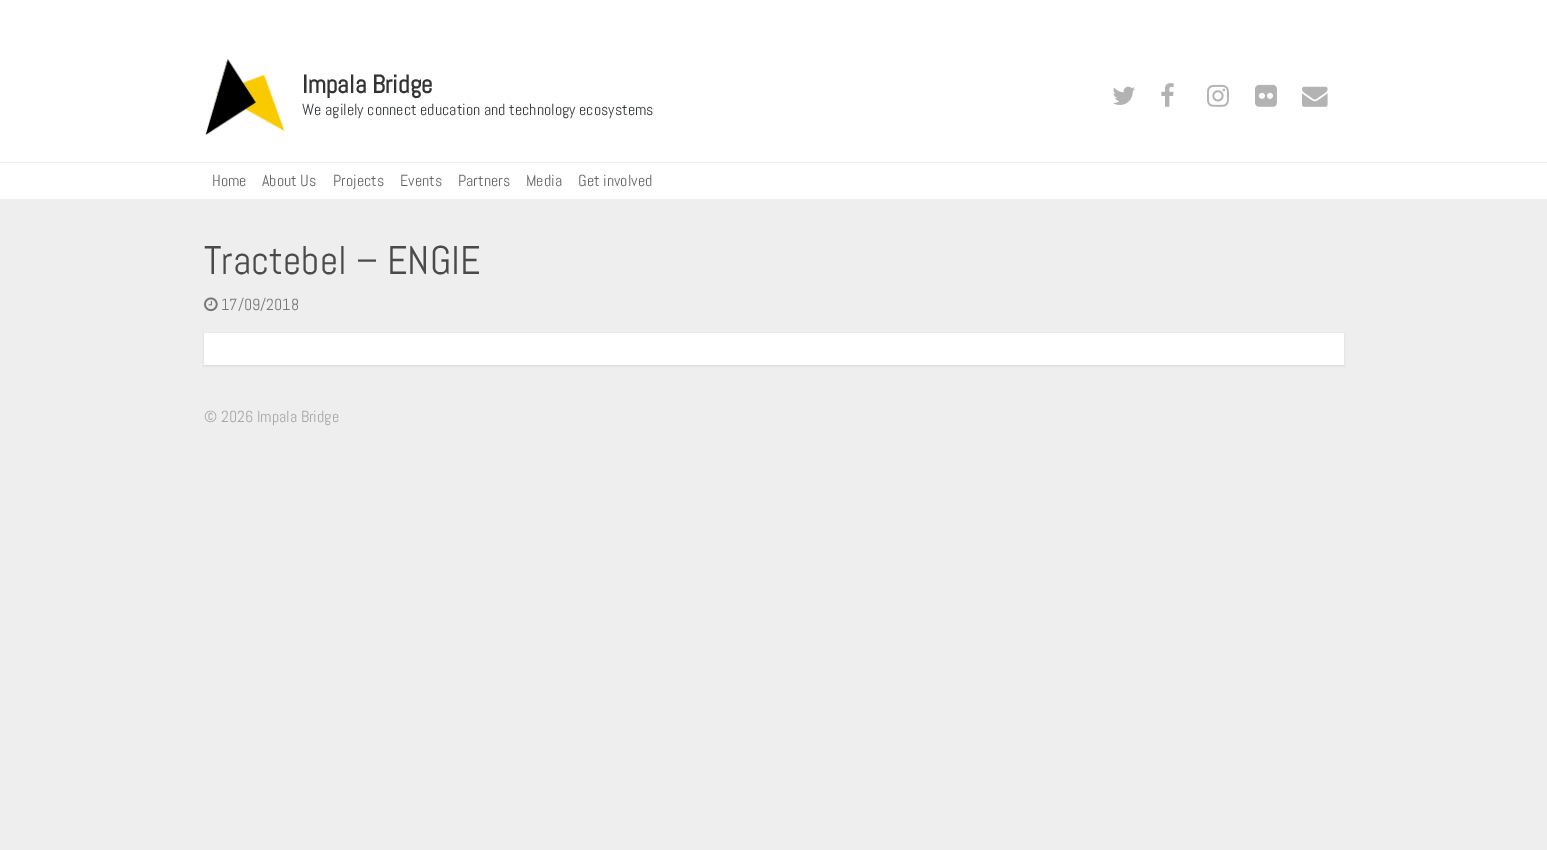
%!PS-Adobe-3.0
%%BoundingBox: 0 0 1547 850
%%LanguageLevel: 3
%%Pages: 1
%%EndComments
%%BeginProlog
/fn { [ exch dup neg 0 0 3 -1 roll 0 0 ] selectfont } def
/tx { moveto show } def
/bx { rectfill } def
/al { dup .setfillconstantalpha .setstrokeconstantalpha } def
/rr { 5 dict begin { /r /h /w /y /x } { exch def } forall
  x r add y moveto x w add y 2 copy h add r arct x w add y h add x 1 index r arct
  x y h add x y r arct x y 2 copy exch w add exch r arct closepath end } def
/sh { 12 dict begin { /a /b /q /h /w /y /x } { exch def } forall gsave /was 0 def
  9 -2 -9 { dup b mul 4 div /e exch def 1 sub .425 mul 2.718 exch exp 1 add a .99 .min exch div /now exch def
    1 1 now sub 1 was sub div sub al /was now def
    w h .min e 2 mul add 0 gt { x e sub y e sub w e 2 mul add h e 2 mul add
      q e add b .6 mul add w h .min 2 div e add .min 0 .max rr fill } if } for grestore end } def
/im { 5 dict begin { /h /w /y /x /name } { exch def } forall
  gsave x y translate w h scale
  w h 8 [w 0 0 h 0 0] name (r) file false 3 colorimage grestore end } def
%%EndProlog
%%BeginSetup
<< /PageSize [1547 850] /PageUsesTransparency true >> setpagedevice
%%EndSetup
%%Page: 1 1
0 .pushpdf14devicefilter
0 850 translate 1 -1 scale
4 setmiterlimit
0.933 setgray
0 0 1547 850 bx
1 setgray
0 0 1547 199 bx
(image0.raw) 205 59 80 77 im
/Abel-Bold 25.5 fn
0.2 setgray
(Impala Bridge) 302 93 tx
/Abel-Regular 16 fn
0.216 0.227 0.235 setrgbcolor
(We agilely connect education and technology ecosystems) 302 115 tx
(image1.raw) 1113 86 22 19 im
(image2.raw) 1161 83 13 24 im
(image3.raw) 1207 84 22 23 im
(image4.raw) 1255 84 22 23 im
(image5.raw) 1302 86 26 21 im
0.933 setgray
0 162 1547 1 bx
0.4 setgray
(Home) 212 186 tx
(About Us) 262 186 tx
(Projects) 333 186 tx
(Events) 400 186 tx
(Partners) 458 186 tx
(Media) 526 186 tx
(Get involved) 578 186 tx
/Abel-Regular 40 fn
0.29 setgray
(Tractebel – ENGIE) 204 274 tx
(image6.raw) 204 297 14 15 im
/Abel-Regular 16 fn
0.467 setgray
(17/09/2018) 221 310 tx
0 setgray
204 334 1140 32 0 1 0.1 sh
1 setgray
204 333 1140 32 bx
0.655 setgray
(© 2026 Impala Bridge) 204 422 tx
.poppdf14devicefilter showpage
%%EOF
